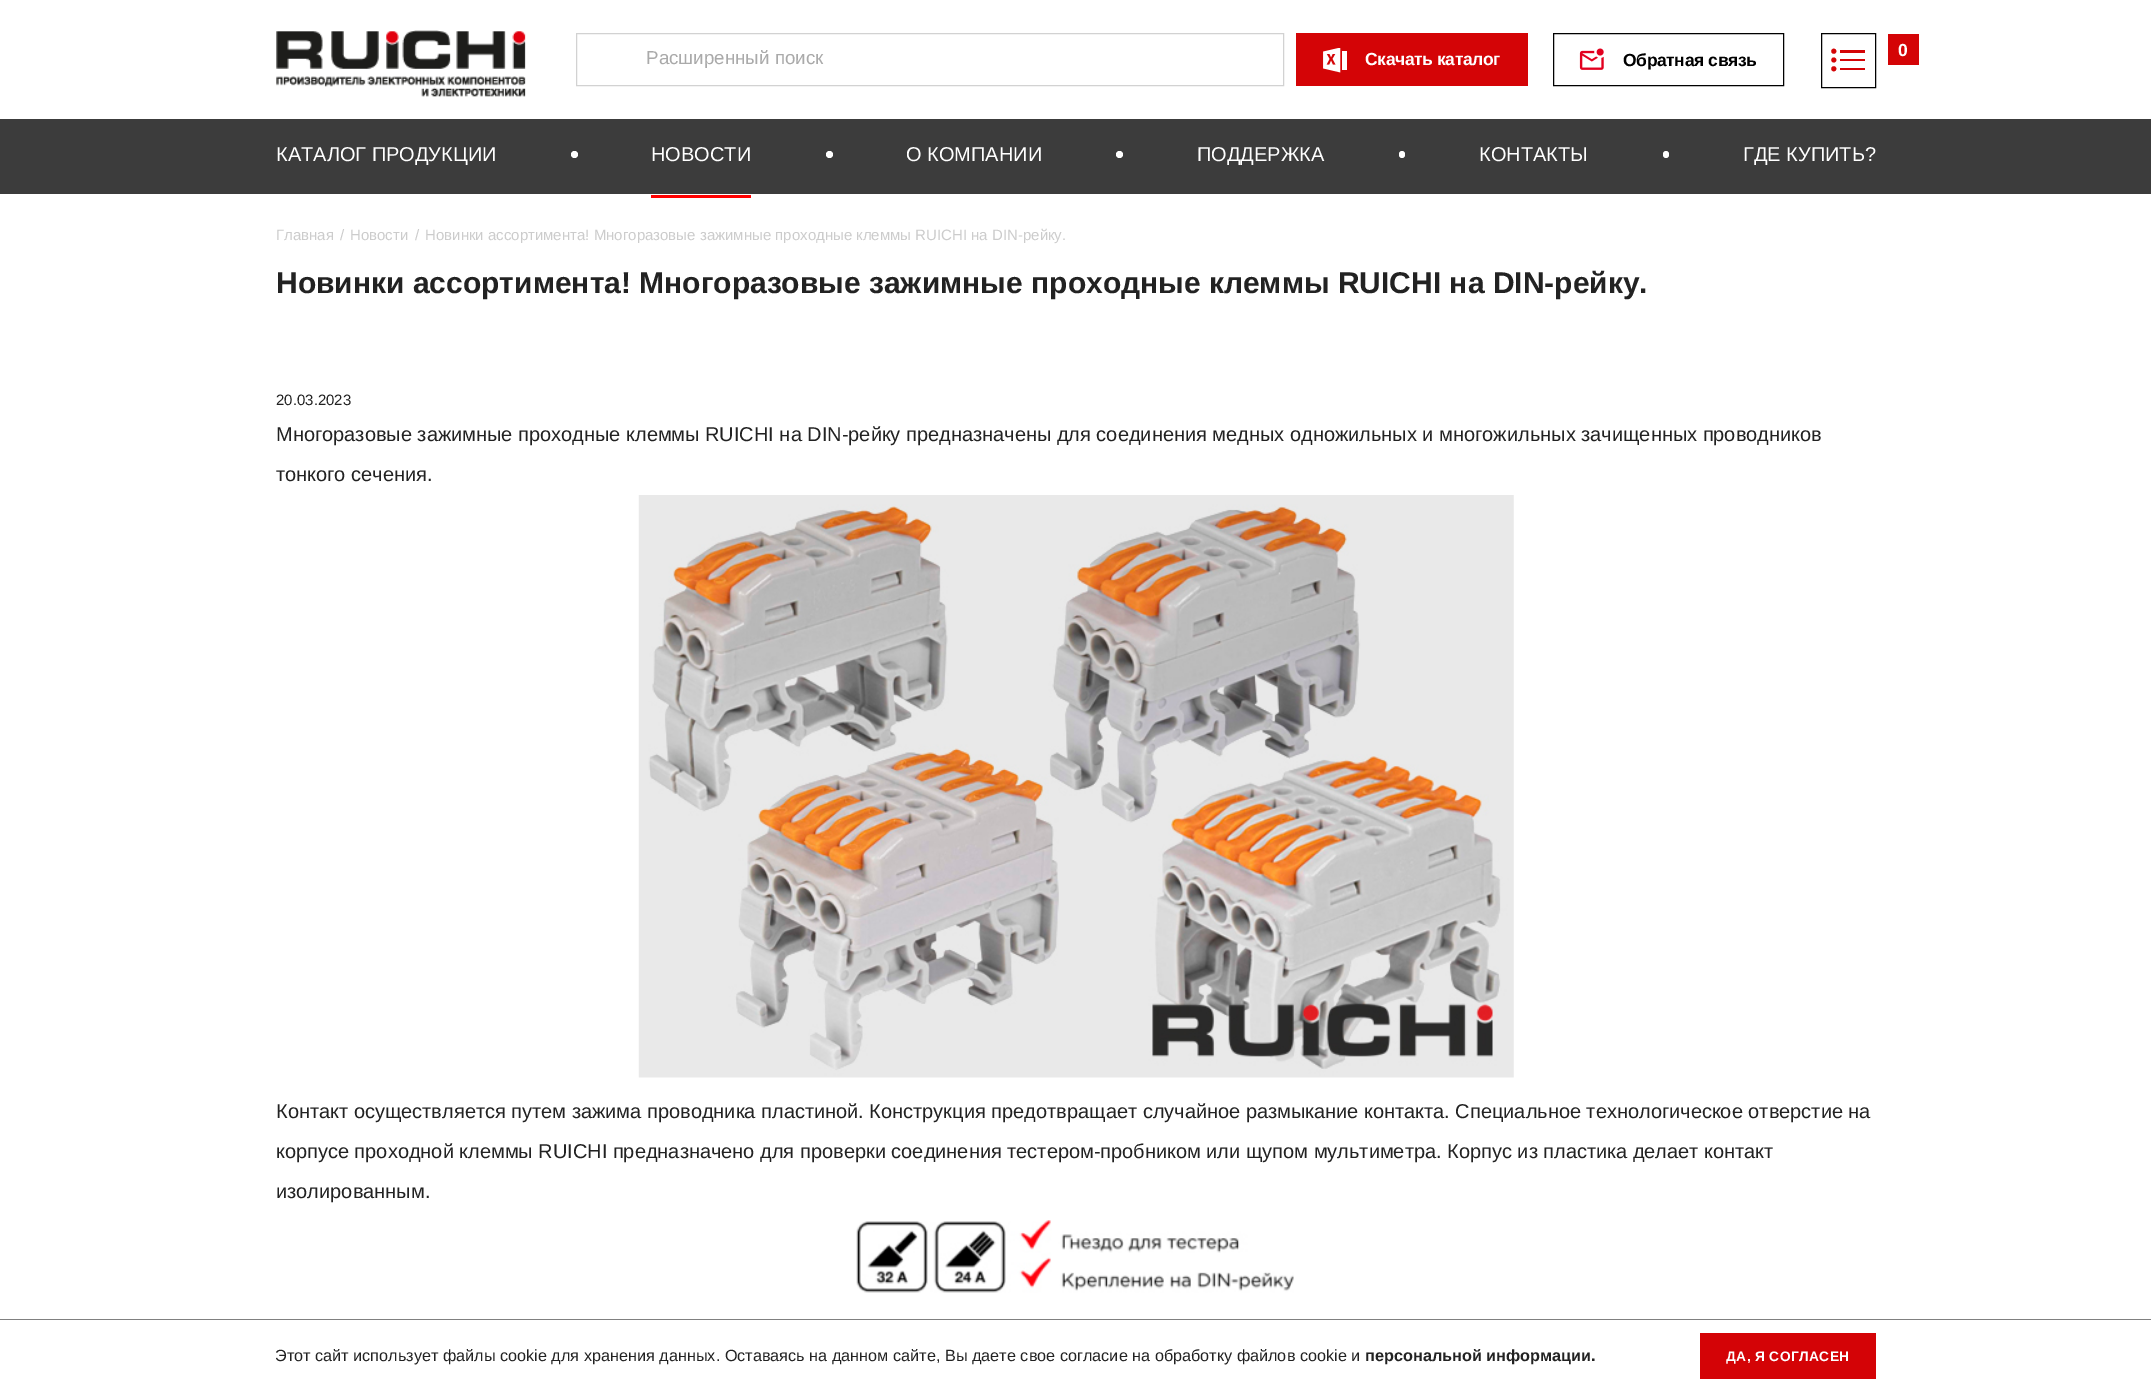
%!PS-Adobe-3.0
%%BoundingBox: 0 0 2151 1391
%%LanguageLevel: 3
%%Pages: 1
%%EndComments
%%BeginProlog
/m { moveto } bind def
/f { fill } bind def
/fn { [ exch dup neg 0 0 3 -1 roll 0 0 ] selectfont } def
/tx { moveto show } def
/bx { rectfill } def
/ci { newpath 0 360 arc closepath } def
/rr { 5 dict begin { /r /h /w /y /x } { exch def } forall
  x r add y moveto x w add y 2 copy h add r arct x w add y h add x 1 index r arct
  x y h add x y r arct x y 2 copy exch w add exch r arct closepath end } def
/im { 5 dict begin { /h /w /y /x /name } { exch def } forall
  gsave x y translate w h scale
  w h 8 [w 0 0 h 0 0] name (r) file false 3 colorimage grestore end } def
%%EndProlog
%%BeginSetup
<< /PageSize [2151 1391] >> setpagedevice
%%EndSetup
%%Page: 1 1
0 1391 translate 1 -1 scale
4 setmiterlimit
1 setgray
0 0 2151 1391 bx
(image0.raw) 276 30 250 67 im
0.824 setgray
576.5 33.5 707 52 rectstroke
/LiberationSans-Regular 18.75 fn
0.667 setgray
(Расширенный поиск) 646 64 tx
0.831 0.016 0.024 setrgbcolor
1296 33 232 53 bx
(image1.raw) 1323 48 24 25 im
/LiberationSans-Bold 17.5 fn
1 setgray
1365 65 m -0.4 0 (Скачать каталог) ashow
0 setgray
1553.5 33.5 230 52 rectstroke
(image2.raw) 1579 48 25 22 im
1623 66 m -0.4 0 (Обратная связь) ashow
0.831 0.016 0.024 setrgbcolor
1833.8 51.2 2.5 ci f
1840 50 25 3 bx
1833.8 60 2.5 ci f
1840 59 25 2 bx
1833.8 68.8 2.5 ci f
1840 68 25 2 bx
0 setgray
1821.5 33.5 54 54 rectstroke
0.831 0.016 0.024 setrgbcolor
1888 34 31 31 bx
1 setgray
(0) 1898 56 tx
0.235 setgray
0 119 2151 75 bx
/LiberationSans-Regular 20 fn
1 setgray
(КАТАЛОГ ПРОДУКЦИИ) 276 161 tx
574.5 154.5 3.5 ci f
(НОВОСТИ) 651 161 tx
1 0 0 setrgbcolor
651 195 100 3 bx
1 setgray
829.5 154.5 3.5 ci f
(О КОМПАНИИ) 906 161 tx
1119.5 154.5 3.5 ci f
(ПОДДЕРЖКА) 1197 161 tx
1399 151 6 7 3 rr f
(КОНТАКТЫ) 1479 161 tx
1663 151 6 7 3 rr f
(ГДЕ КУПИТЬ?) 1743 161 tx
/LiberationSans-Regular 15 fn
0.8 setgray
(Главная) 276 240 tx
(/) 340 240 tx
(Новости) 350 240 tx
(/) 415 240 tx
(Новинки ассортимента! Многоразовые зажимные проходные клеммы RUICHI на DIN-рейку.) 425 240 tx
/LiberationSans-Bold 30 fn
0.133 setgray
(Новинки ассортимента! Многоразовые зажимные проходные клеммы RUICHI на DIN-рейку.) 276 293 tx
/LiberationSans-Regular 15 fn
(20.03.2023) 276 405 tx
/LiberationSans-Regular 20 fn
(Многоразовые зажимные проходные клеммы RUICHI на DIN-рейку предназначены для соединения медных одножильных и многожильных зачищенных проводников) 276 441 tx
(тонкого сечения.) 276 481 tx
(image3.raw) 638 495 876 583 im
(Контакт осуществляется путем зажима проводника пластиной. Конструкция предотвращает случайное размыкание контакта. Специальное технологическое отверстие на) 276 1118 tx
(корпусе проходной клеммы RUICHI предназначено для проверки соединения тестером-пробником или щупом мультиметра. Корпус из пластика делает контакт) 276 1158 tx
(изолированным.) 276 1198 tx
(image4.raw) 856 1220 438 73 im
0.502 setgray
0 1319 2151 1 bx
/LiberationSans-Regular 16.25 fn
0.133 setgray
(Этот сайт использует файлы cookie для хранения данных. Оставаясь на данном сайте, Вы даете свое согласие на обработку файлов cookie и) 275 1361 tx
/LiberationSans-Bold 16.25 fn
(персональной информации.) 1365 1361 tx
0.831 0.012 0.024 setrgbcolor
1700 1333 176 46 bx
/LiberationSans-Bold 13.75 fn
1 setgray
1726 1361 m 0.4 0 (ДА, Я СОГЛАСЕН) ashow
showpage
%%EOF
